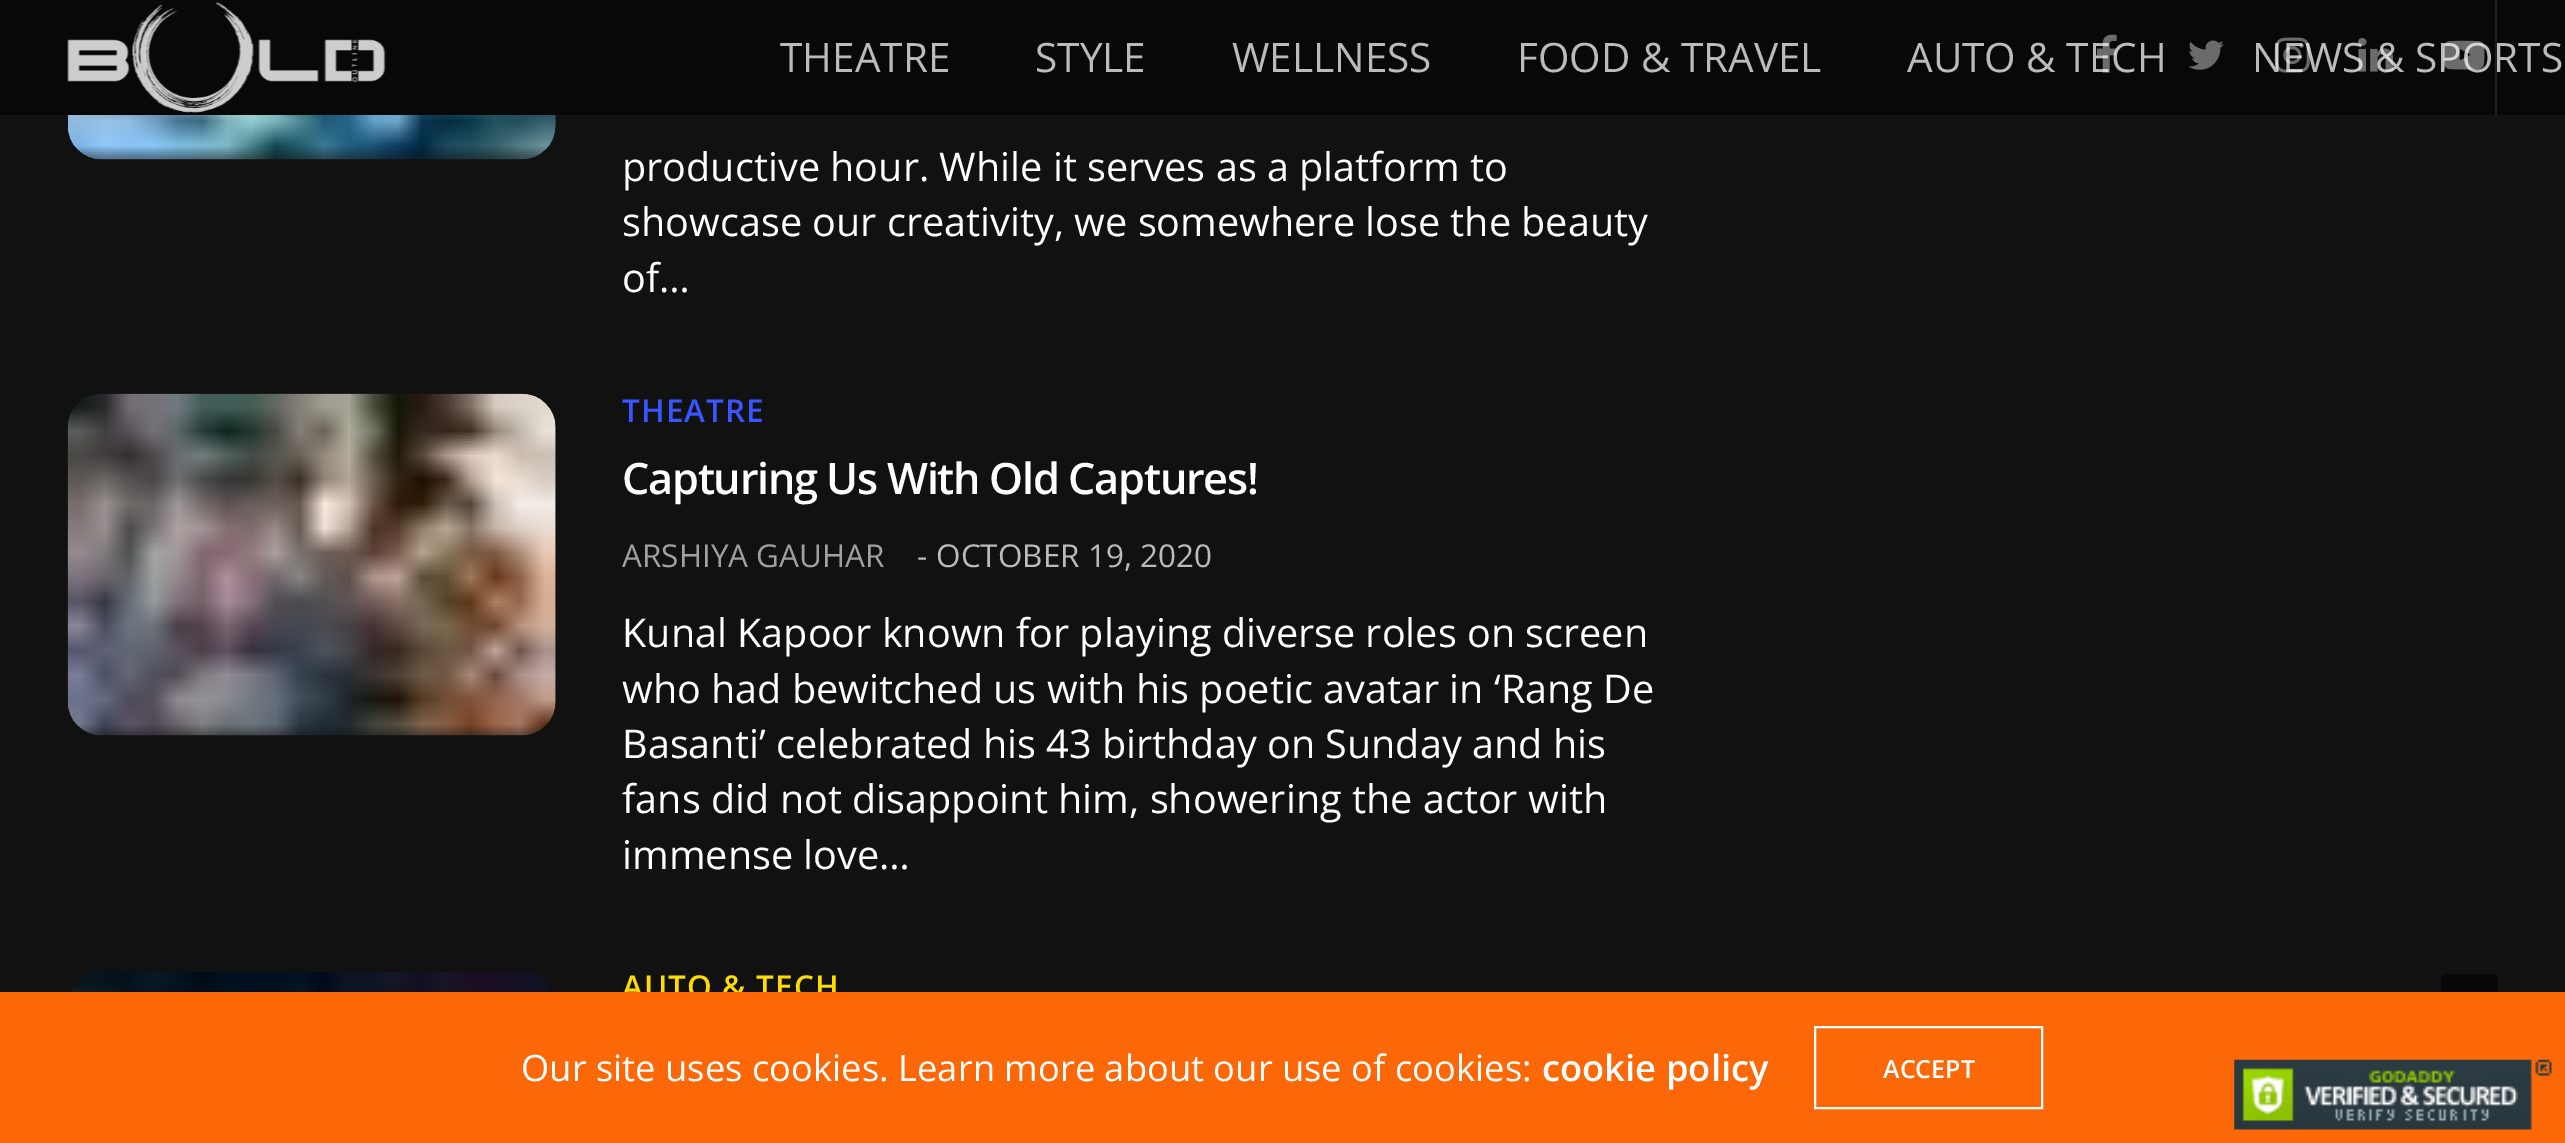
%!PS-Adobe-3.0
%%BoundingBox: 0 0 2565 1143
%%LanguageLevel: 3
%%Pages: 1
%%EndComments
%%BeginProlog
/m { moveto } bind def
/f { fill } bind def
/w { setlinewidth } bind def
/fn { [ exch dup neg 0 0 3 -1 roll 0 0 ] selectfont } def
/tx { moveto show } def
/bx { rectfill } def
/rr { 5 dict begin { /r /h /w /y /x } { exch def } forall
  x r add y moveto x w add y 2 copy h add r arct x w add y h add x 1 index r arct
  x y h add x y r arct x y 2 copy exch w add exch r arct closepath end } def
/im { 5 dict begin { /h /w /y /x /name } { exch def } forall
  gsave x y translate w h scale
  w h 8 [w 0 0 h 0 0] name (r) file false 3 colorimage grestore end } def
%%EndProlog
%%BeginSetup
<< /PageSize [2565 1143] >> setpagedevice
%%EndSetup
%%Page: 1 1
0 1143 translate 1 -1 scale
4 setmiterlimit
0.067 setgray
0 0 2565 1143 bx
0.031 setgray
0 0 2565 115 bx
(image0.raw) 67 2 319 111 im
0.129 setgray
2495 0 2 115 bx
/OpenSans-Regular 40.5 fn
0.733 setgray
(AUTO & TECH) 1907 72 tx
(image1.raw) 2096 34 21 39 im
(image2.raw) 2188 40 36 30 im
(NEWS & SPORTS) 2252 72 tx
(image3.raw) 2274 37 36 36 im
(image4.raw) 2358 38 36 34 im
(image5.raw) 2443 40 42 30 im
(THEATRE) 780 72 tx
(STYLE) 1035 72 tx
(WELLNESS) 1232 72 tx
(FOOD & TRAVEL) 1517 72 tx
(image6.raw) 68 115 488 45 im
/OpenSans-Regular 39.6 fn
1 setgray
(productive hour. While it serves as a platform to) 622 181 tx
(showcase our creativity, we somewhere lose the beauty) 622 236 tx
(of…) 622 292 tx
(image7.raw) 67 393 489 343 im
/OpenSans-SemiBold 31.5 fn
0.22 0.333 1 setrgbcolor
622 422 m 1.1 0 (THEATRE) ashow
/OpenSans-SemiBold 43.25 fn
1 setgray
622 494 m -1.3 0 (Capturing Us With Old Captures!) ashow
/OpenSans-Regular 31.5 fn
0.627 setgray
(ARSHIYA GAUHAR) 622 567 tx
0.733 setgray
(-) 917 567 tx
(OCTOBER 19, 2020) 936 567 tx
/OpenSans-Regular 39.6 fn
1 setgray
(Kunal Kapoor known for playing diverse roles on screen) 622 647 tx
(who had bewitched us with his poetic avatar in ‘Rang De) 622 703 tx
(Basanti’ celebrated his 43 birthday on Sunday and his) 622 758 tx
(fans did not disappoint him, showering the actor with) 622 813 tx
(immense love…) 622 869 tx
(image8.raw) 70 972 483 20 im
/OpenSans-SemiBold 31.5 fn
1 0.863 0 setrgbcolor
622 998 m 1.1 0 (AUTO & TECH) ashow
0.027 setgray
2441 974 57 57 5 rr f
0.988 0.408 0.027 setrgbcolor
0 992 2565 151 bx
/OpenSans-Regular 36.35 fn
1 setgray
(Our site uses cookies. Learn more about our use of cookies:) 521 1081 tx
/OpenSans-SemiBold 36.35 fn
(cookie policy) 1542 1081 tx
2 w
1815 1027 227 81 rectstroke
/OpenSans-SemiBold 25 fn
(ACCEPT) 1883 1078 tx
(image9.raw) 2234 1059 318 71 im
showpage
%%EOF
